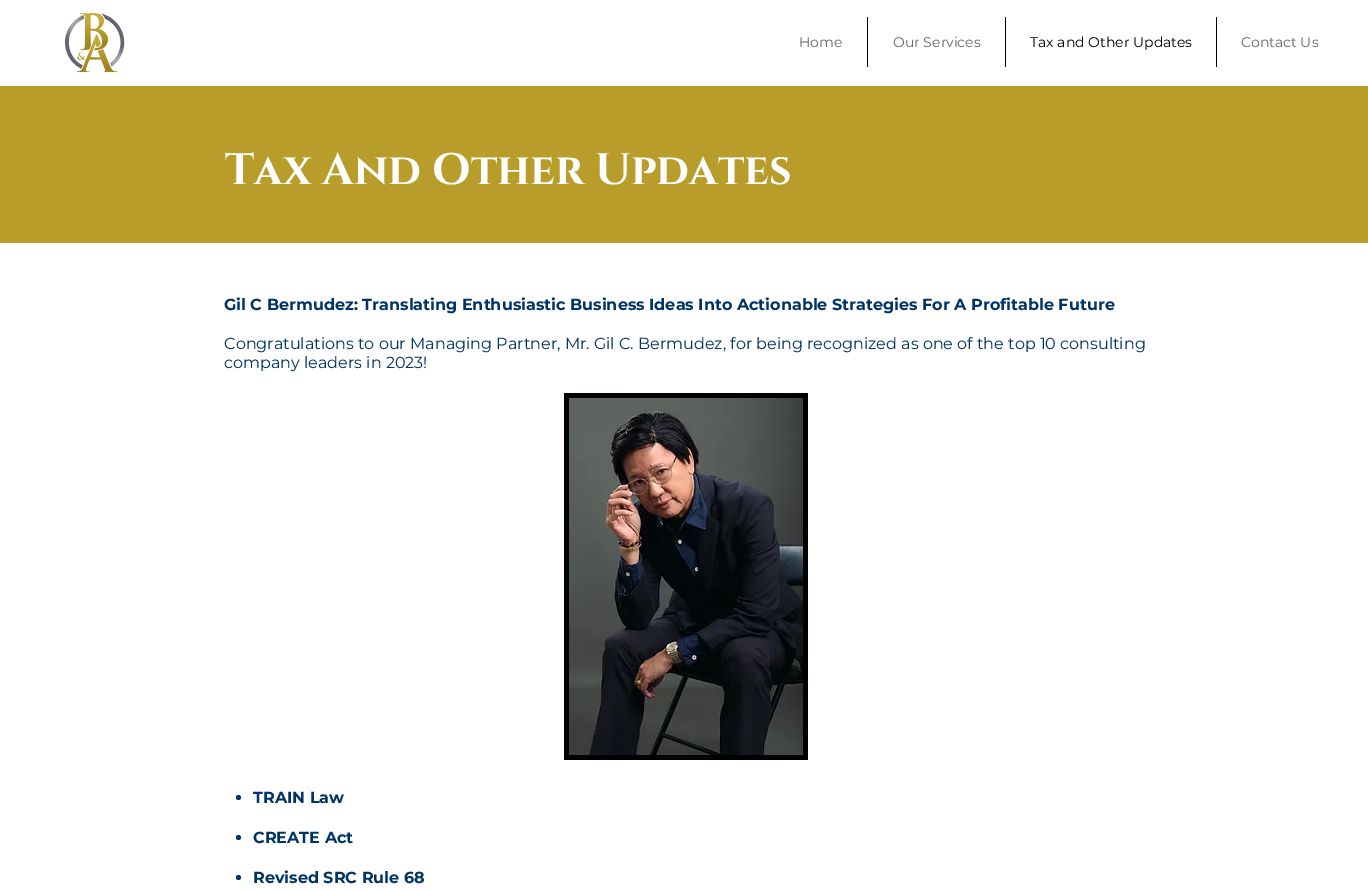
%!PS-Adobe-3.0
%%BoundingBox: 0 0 1368 890
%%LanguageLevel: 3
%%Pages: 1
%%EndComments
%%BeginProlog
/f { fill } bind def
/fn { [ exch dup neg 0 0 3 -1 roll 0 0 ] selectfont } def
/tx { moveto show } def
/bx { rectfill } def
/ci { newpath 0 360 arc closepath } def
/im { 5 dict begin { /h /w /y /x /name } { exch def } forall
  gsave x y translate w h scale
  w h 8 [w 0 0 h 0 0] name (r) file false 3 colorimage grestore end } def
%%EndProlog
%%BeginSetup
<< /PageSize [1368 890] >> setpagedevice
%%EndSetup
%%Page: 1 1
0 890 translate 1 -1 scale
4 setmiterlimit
1 setgray
0 0 1368 890 bx
(image0.raw) 64 12 61 61 im
/Montserrat-Regular 14 fn
0.392 0.4 0.447 setrgbcolor
(Home) 799 47 tx
0 setgray
867 17 1 50 bx
0.392 0.4 0.447 setrgbcolor
(Our Services) 893 47 tx
0 setgray
1005 17 1 50 bx
(Tax and Other Updates) 1030 47 tx
1216 17 1 50 bx
0.392 0.4 0.447 setrgbcolor
(Contact Us) 1241 47 tx
0.722 0.616 0.165 setrgbcolor
0 86 1368 157 bx
/Cinzel-Bold 44 fn
1 setgray
(Tax And Other Updates) 225 184 tx
/Montserrat-Bold 16 fn
0 0.2 0.4 setrgbcolor
(Gil C Bermudez: Translating Enthusiastic Business Ideas Into Actionable Strategies For A Profitable Future) 224 310 tx
/Montserrat-Regular 16 fn
(Congratulations to our Managing Partner, Mr. Gil C. Bermudez, for being recognized as one of the top 10 consulting) 224 349 tx
(company leaders in 2023!) 224 368 tx
0 setgray
564 393 244 367 bx
(image1.raw) 569 398 234 357 im
0 0.2 0.4 setrgbcolor
238.5 797.5 2.5 ci f
/Montserrat-Bold 16 fn
(TRAIN Law) 253 803 tx
238.5 837.5 2.5 ci f
(CREATE Act) 253 843 tx
238.5 877.5 2.5 ci f
(Revised SRC Rule 68) 253 883 tx
showpage
%%EOF
